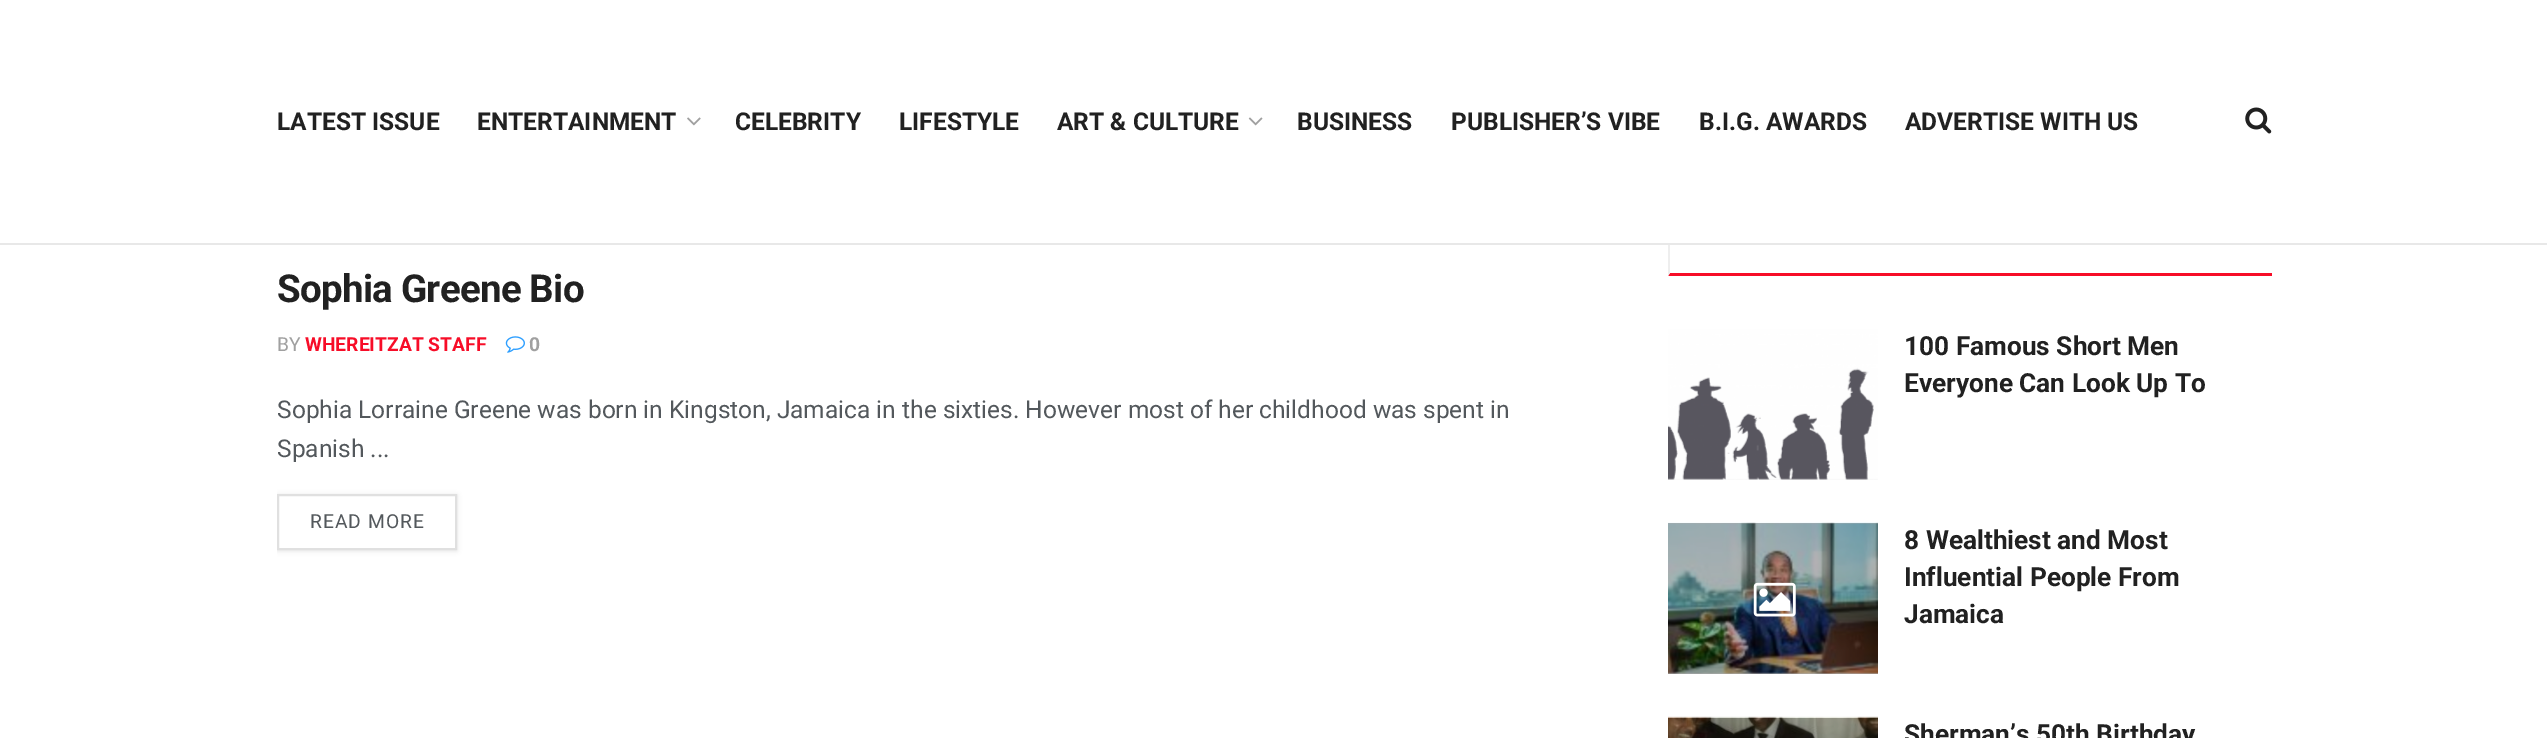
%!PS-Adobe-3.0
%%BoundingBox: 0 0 2547 738
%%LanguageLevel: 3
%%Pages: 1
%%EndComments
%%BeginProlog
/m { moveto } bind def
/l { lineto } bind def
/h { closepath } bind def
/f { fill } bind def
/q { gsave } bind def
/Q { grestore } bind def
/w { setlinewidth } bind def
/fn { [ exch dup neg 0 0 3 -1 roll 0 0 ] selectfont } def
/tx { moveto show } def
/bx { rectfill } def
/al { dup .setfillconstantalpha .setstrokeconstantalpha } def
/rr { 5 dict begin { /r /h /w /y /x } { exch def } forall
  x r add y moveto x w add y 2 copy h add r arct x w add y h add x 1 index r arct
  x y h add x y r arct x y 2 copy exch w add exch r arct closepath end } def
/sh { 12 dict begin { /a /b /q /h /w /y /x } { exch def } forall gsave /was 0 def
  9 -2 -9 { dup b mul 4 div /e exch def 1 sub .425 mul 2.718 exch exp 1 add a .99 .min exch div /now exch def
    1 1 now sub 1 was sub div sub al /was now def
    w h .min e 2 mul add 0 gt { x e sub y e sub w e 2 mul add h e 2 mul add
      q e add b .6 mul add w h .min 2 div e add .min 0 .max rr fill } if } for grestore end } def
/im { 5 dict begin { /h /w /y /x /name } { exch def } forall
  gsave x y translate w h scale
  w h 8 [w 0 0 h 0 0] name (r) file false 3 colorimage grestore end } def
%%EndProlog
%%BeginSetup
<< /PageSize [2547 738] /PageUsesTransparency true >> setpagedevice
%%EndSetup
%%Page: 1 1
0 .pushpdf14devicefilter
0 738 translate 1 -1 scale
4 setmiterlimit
1 setgray
0 0 2547 738 bx
0.969 0.051 0.157 setrgbcolor
2272 276 m 1668 276 l 1670 273 l 2272 273 l h f
0.933 setgray
1668 276 m 1668 208 l 1670 210 l 1670 273 l h f
1 setgray
1668 208 2 35 bx
0.91 setgray
0 243 2547 2 bx
/Roboto-Bold 24.5 fn
0.129 setgray
(LATEST ISSUE) 277 130 tx
(ENTERTAINMENT) 477 130 tx
(image0.raw) 687 117 14 9 im
(CELEBRITY) 735 130 tx
(LIFESTYLE) 899 130 tx
(ART & CULTURE) 1057 130 tx
(image1.raw) 1248 117 15 9 im
(BUSINESS) 1297 130 tx
(PUBLISHER’S VIBE) 1451 130 tx
(B.I.G. AWARDS) 1699 130 tx
(ADVERTISE WITH US) 1905 130 tx
(image2.raw) 2245 107 27 27 im
/Roboto-Bold 38.5 fn
277 302 m -0.75 0 (Sophia Greene Bio) ashow
/Roboto-Regular 19.25 fn
0.627 setgray
(BY) 277 351 tx
/Roboto-Bold 19.25 fn
0.969 0.051 0.157 setrgbcolor
(WHEREITZAT STAFF) 305 351 tx
(image3.raw) 505 336 20 17 im
0.627 setgray
(0) 529 351 tx
/Roboto-Regular 24.5 fn
0.325 0.345 0.361 setrgbcolor
(Sophia Lorraine Greene was born in Kingston, Jamaica in the sixties. However most of her childhood was spent in) 277 418 tx
(Spanish ...) 277 457 tx
q
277 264 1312 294 rectclip
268 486 m 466 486 l 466 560 l 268 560 l h 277 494 m 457 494 l 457 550 l 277 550 l h eoclip newpath
0 setgray
277 495 180 56 0 2.5 0.1 sh
Q
0.878 setgray
2 w
278 495 178 54 rectstroke
/Roboto-Regular 19.25 fn
0.325 0.345 0.361 setrgbcolor
310 528 m 1 0 (READ MORE) ashow
0.969 setgray
1668 478 210 2 bx
(image4.raw) 1668 329 210 151 im
/Roboto-Bold 26.25 fn
0.129 setgray
(100 Famous Short Men) 1904 355 tx
(Everyone Can Look Up To) 1904 392 tx
0.678 setgray
1668 523 210 151 bx
(image5.raw) 1668 522 210 152 im
(image6.raw) 1753 582 43 35 im
0.129 setgray
(8 Wealthiest and Most) 1904 549 tx
(Influential People From) 1904 586 tx
(Jamaica) 1904 623 tx
(image7.raw) 1668 716 210 22 im
(Sherman’s 50th Birthday) 1904 743 tx
.poppdf14devicefilter showpage
%%EOF
